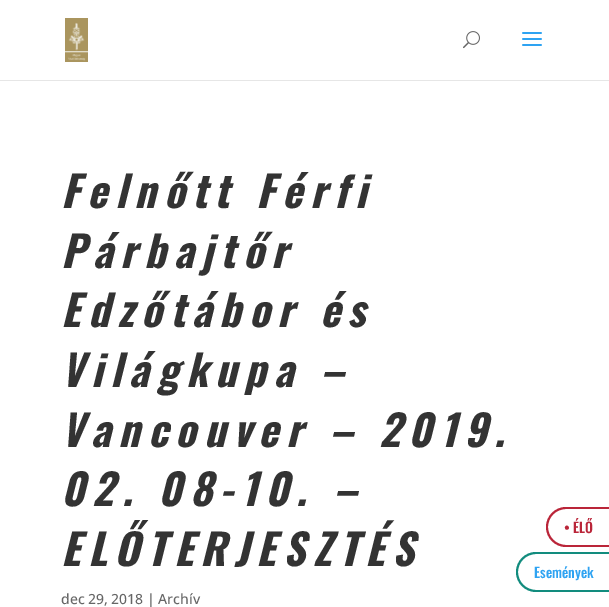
%!PS-Adobe-3.0
%%BoundingBox: 0 0 609 607
%%LanguageLevel: 3
%%Pages: 1
%%EndComments
%%BeginProlog
/m { moveto } bind def
/l { lineto } bind def
/c { curveto } bind def
/h { closepath } bind def
/fn { [ exch dup neg 0 0 3 -1 roll 0 0 ] selectfont } def
/tx { moveto show } def
/bx { rectfill } def
/im { 5 dict begin { /h /w /y /x /name } { exch def } forall
  gsave x y translate w h scale
  w h 8 [w 0 0 h 0 0] name (r) file false 3 colorimage grestore end } def
%%EndProlog
%%BeginSetup
<< /PageSize [609 607] >> setpagedevice
%%EndSetup
%%Page: 1 1
0 607 translate 1 -1 scale
4 setmiterlimit
1 setgray
0 0 609 607 bx
0.902 setgray
0 80 609 1 bx
(image0.raw) 65 18 23 44 im
(image1.raw) 463 31 17 18 im
(image2.raw) 522 32 20 14 im
/Oswald-BoldItalic 42.6 fn
0.2 setgray
61 208 m 7.7 0 (Felnőtt Férfi) ashow
61 268 m 7.7 0 (Párbajtőr) ashow
61 327 m 7.7 0 (Edzőtábor és) ashow
61 387 m 7.7 0 (Világkupa –) ashow
61 447 m 7.7 0 (Vancouver – 2019.) ashow
61 506 m 7.7 0 (02. 08-10. –) ashow
61 566 m 7.7 0 (ELŐTERJESZTÉS) ashow
/OpenSans-Medium 14 fn
0.4 setgray
(dec 29, 2018 | Archív) 61 604 tx
0.729 0.145 0.224 setrgbcolor
566 507 m 609 507 l 609 547 l 566 547 l 555 547 546 538 546 527 c 546 516 555 507 566 507 c h 566 509 m 609 509 l 609 545 l 566 545 l 556 545 548 537 548 527 c 548 517 556 509 566 509 c h eofill
/Oswald-Medium 14 fn
(• ÉLŐ) 564 533 tx
0.071 0.549 0.494 setrgbcolor
536 552 m 609 552 l 609 592 l 536 592 l 525 592 516 583 516 572 c 516 561 525 552 536 552 c h 536 554 m 609 554 l 609 590 l 536 590 l 526 590 518 582 518 572 c 518 562 526 554 536 554 c h eofill
0.18 0.639 0.949 setrgbcolor
(Események) 534 578 tx
showpage
%%EOF
